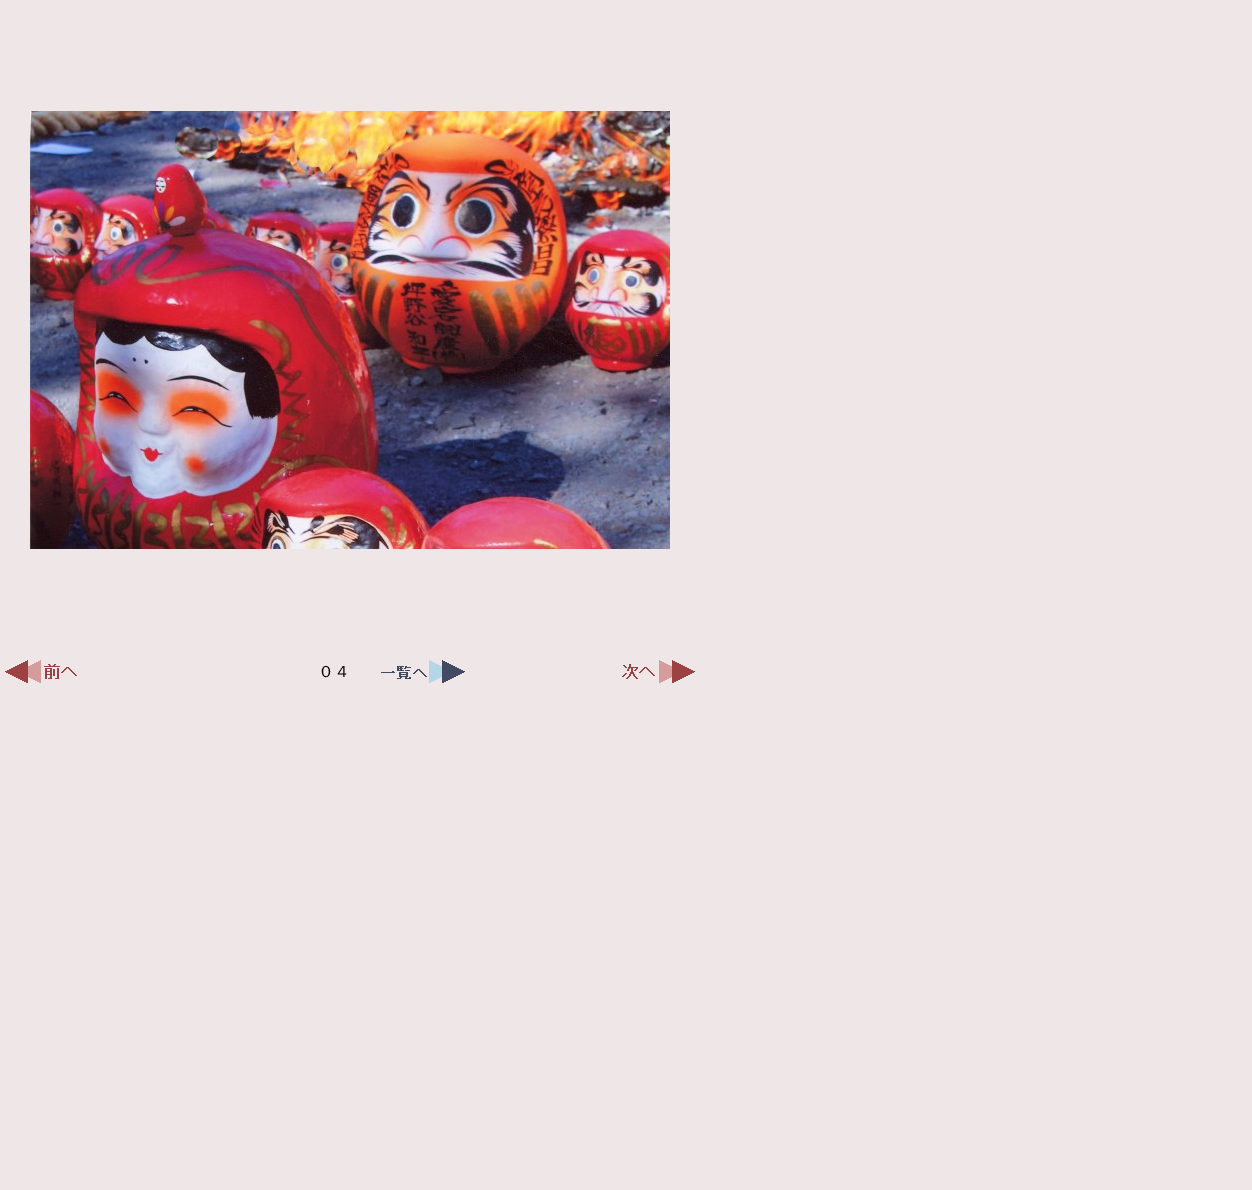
%!PS-Adobe-3.0
%%BoundingBox: 0 0 1252 1190
%%LanguageLevel: 3
%%Pages: 1
%%EndComments
%%BeginProlog
/fn { [ exch dup neg 0 0 3 -1 roll 0 0 ] selectfont } def
/tx { moveto show } def
/bx { rectfill } def
/im { 5 dict begin { /h /w /y /x /name } { exch def } forall
  gsave x y translate w h scale
  w h 8 [w 0 0 h 0 0] name (r) file false 3 colorimage grestore end } def
%%EndProlog
%%BeginSetup
<< /PageSize [1252 1190] >> setpagedevice
%%EndSetup
%%Page: 1 1
0 1190 translate 1 -1 scale
4 setmiterlimit
0.937 0.906 0.906 setrgbcolor
0 0 1252 1190 bx
(image0.raw) 30 111 640 438 im
(image1.raw) 5 660 72 23 im
/WenQuanYiZenHei-Medium 16 fn
0 setgray
(０４) 318 677 tx
(image2.raw) 381 660 84 23 im
(image3.raw) 622 660 73 23 im
showpage
%%EOF
